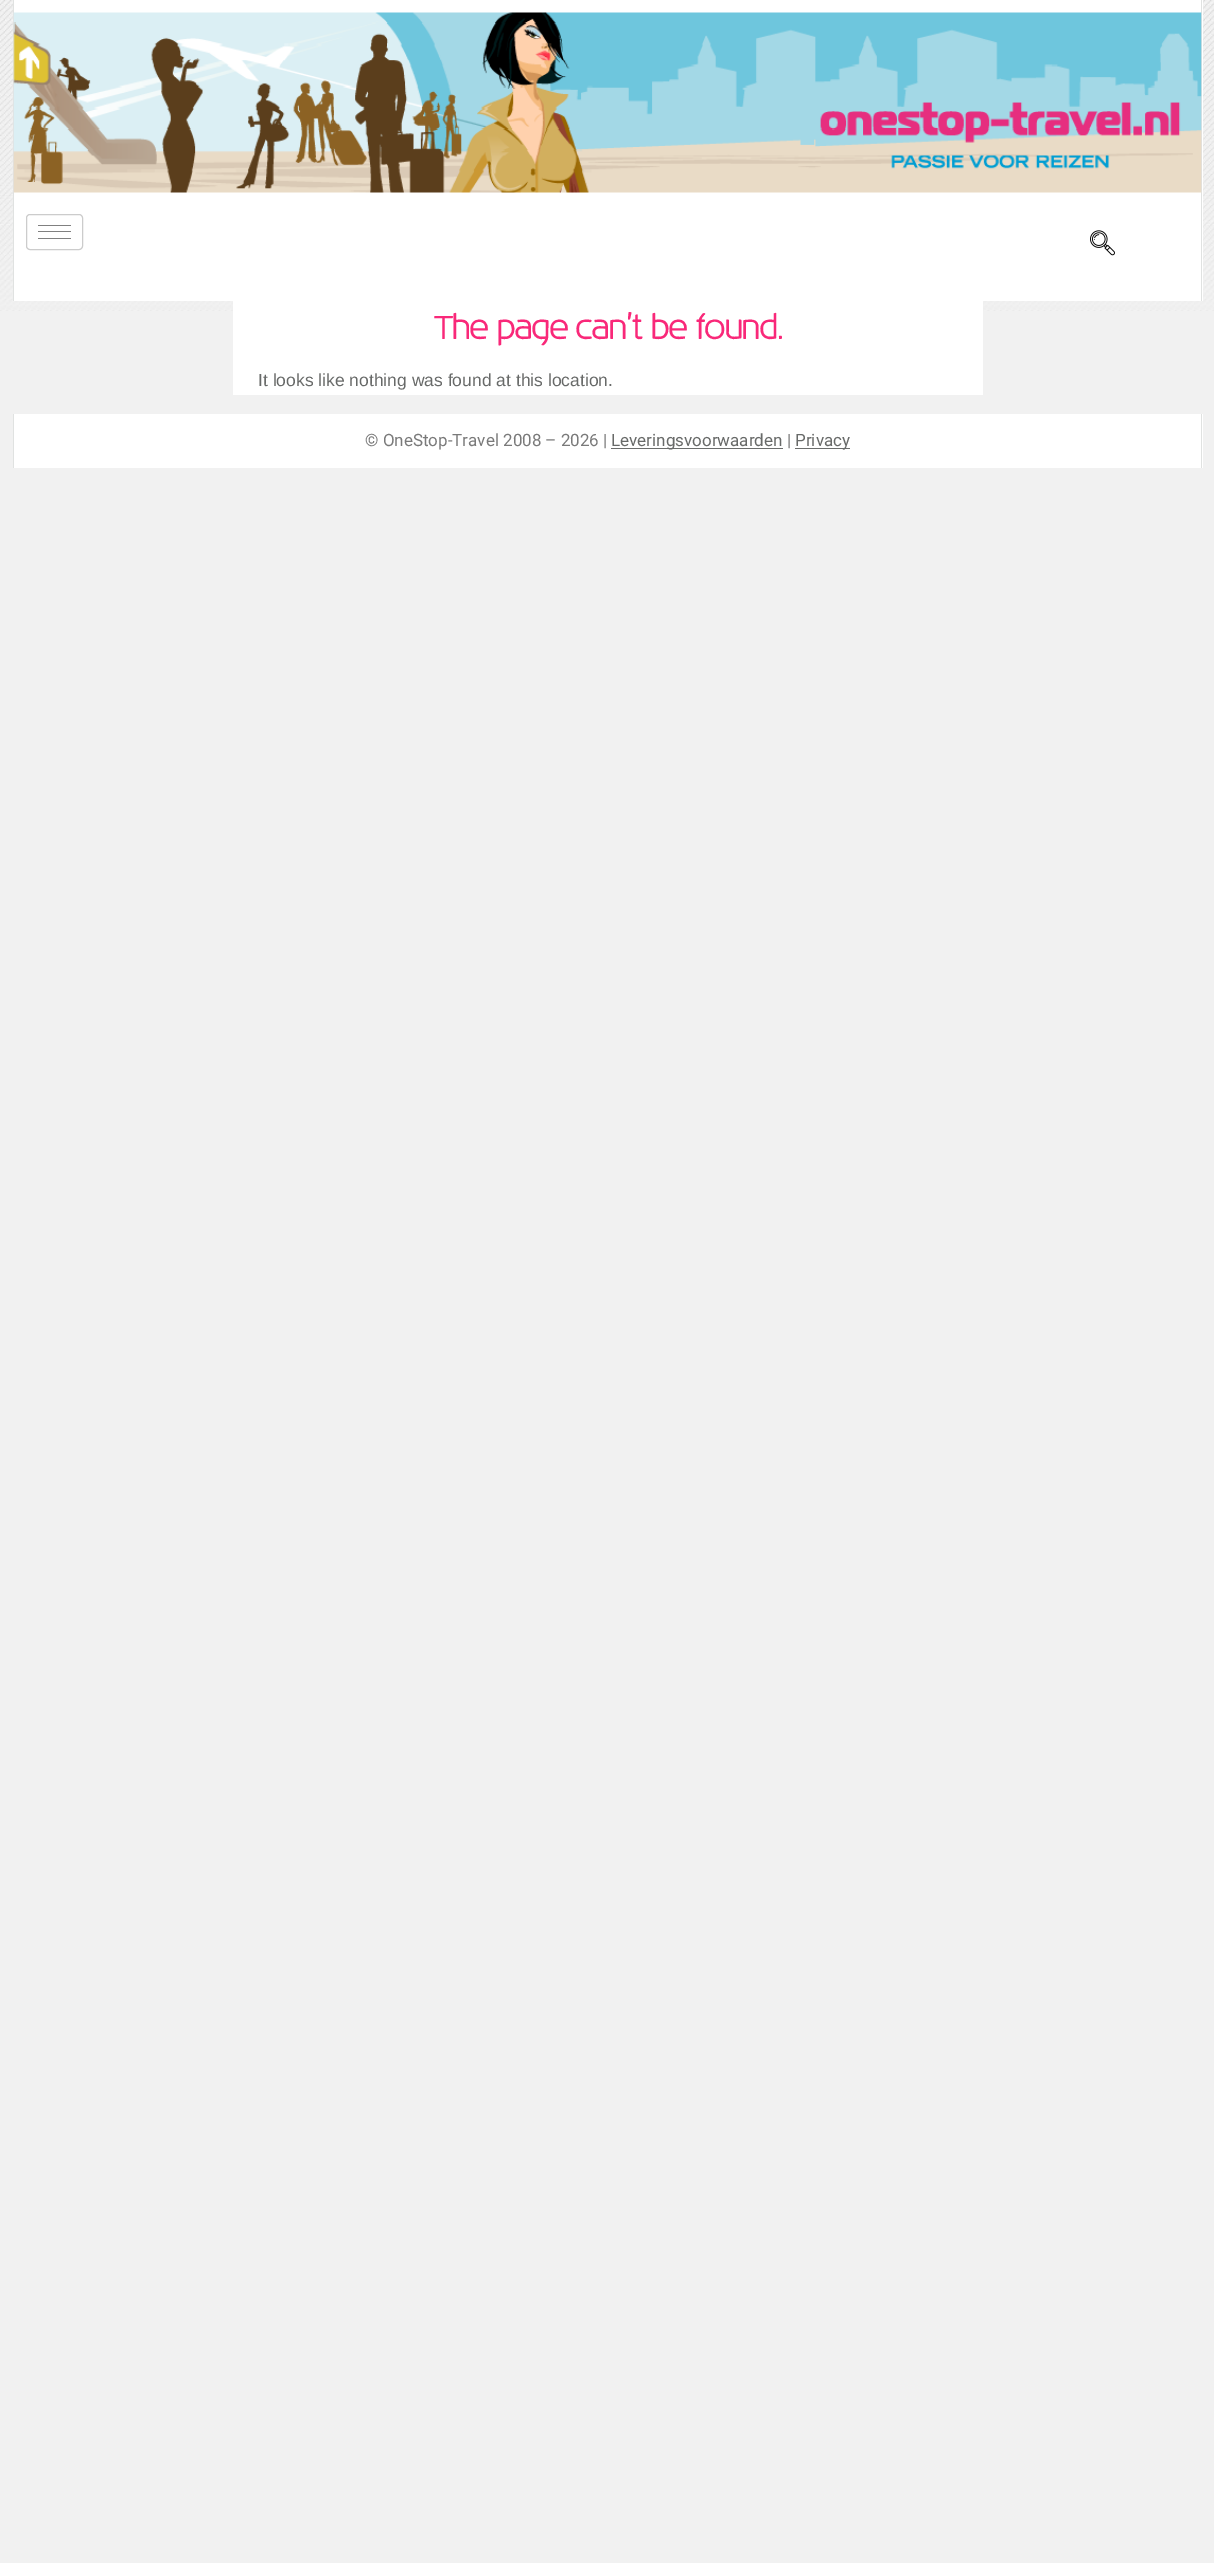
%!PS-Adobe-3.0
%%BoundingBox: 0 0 1214 2563
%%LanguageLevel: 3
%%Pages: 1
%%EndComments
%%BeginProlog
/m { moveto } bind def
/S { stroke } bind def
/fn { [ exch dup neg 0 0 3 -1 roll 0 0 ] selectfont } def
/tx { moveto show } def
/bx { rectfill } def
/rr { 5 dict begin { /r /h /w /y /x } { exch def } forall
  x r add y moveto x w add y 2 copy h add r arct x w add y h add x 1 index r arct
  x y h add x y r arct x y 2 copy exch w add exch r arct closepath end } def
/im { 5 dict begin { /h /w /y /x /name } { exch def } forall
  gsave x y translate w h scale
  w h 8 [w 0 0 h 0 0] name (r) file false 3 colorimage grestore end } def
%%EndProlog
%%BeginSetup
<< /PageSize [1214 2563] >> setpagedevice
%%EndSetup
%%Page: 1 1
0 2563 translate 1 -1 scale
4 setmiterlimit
0.945 setgray
0 0 1214 2563 bx
(image0.raw) 0 0 1214 311 im
1 setgray
14 0 1189 301 bx
0.878 0.886 0.882 setrgbcolor
1201 0 1 301 bx
13 0 1 301 bx
(image1.raw) 13 12 1189 181 im
0.8 setgray
26.5 214.5 56 35 3.5 rr S
0.502 setgray
38 225 33 1 bx
38 231 33 1 bx
38 238 33 1 bx
(image2.raw) 1090 230 25 26 im
1 setgray
233 301 750 94 bx
/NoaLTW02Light-Bold 32.5 fn
0.976 0.157 0.475 setrgbcolor
434 339 m -1.25 0 (The page can’t be found.) ashow
/LiberationSans-Regular 17.5 fn
0.408 0.416 0.412 setrgbcolor
(It looks like nothing was found at this location.) 258 386 tx
1 setgray
14 414 1189 54 bx
0.878 0.886 0.882 setrgbcolor
1201 414 1 54 bx
13 414 1 54 bx
/Roboto-Regular 17 fn
0.478 setgray
(© OneStop-Travel 2008 – 2026 |) 365 446 tx
0.42 0.427 0.424 setrgbcolor
611 448 172 1 bx
0.408 0.416 0.412 setrgbcolor
(Leveringsvoorwaarden) 611 446 tx
0.478 setgray
(|) 787 446 tx
0.42 0.427 0.424 setrgbcolor
795 448 55 1 bx
0.408 0.416 0.412 setrgbcolor
(Privacy) 795 446 tx
showpage
%%EOF
